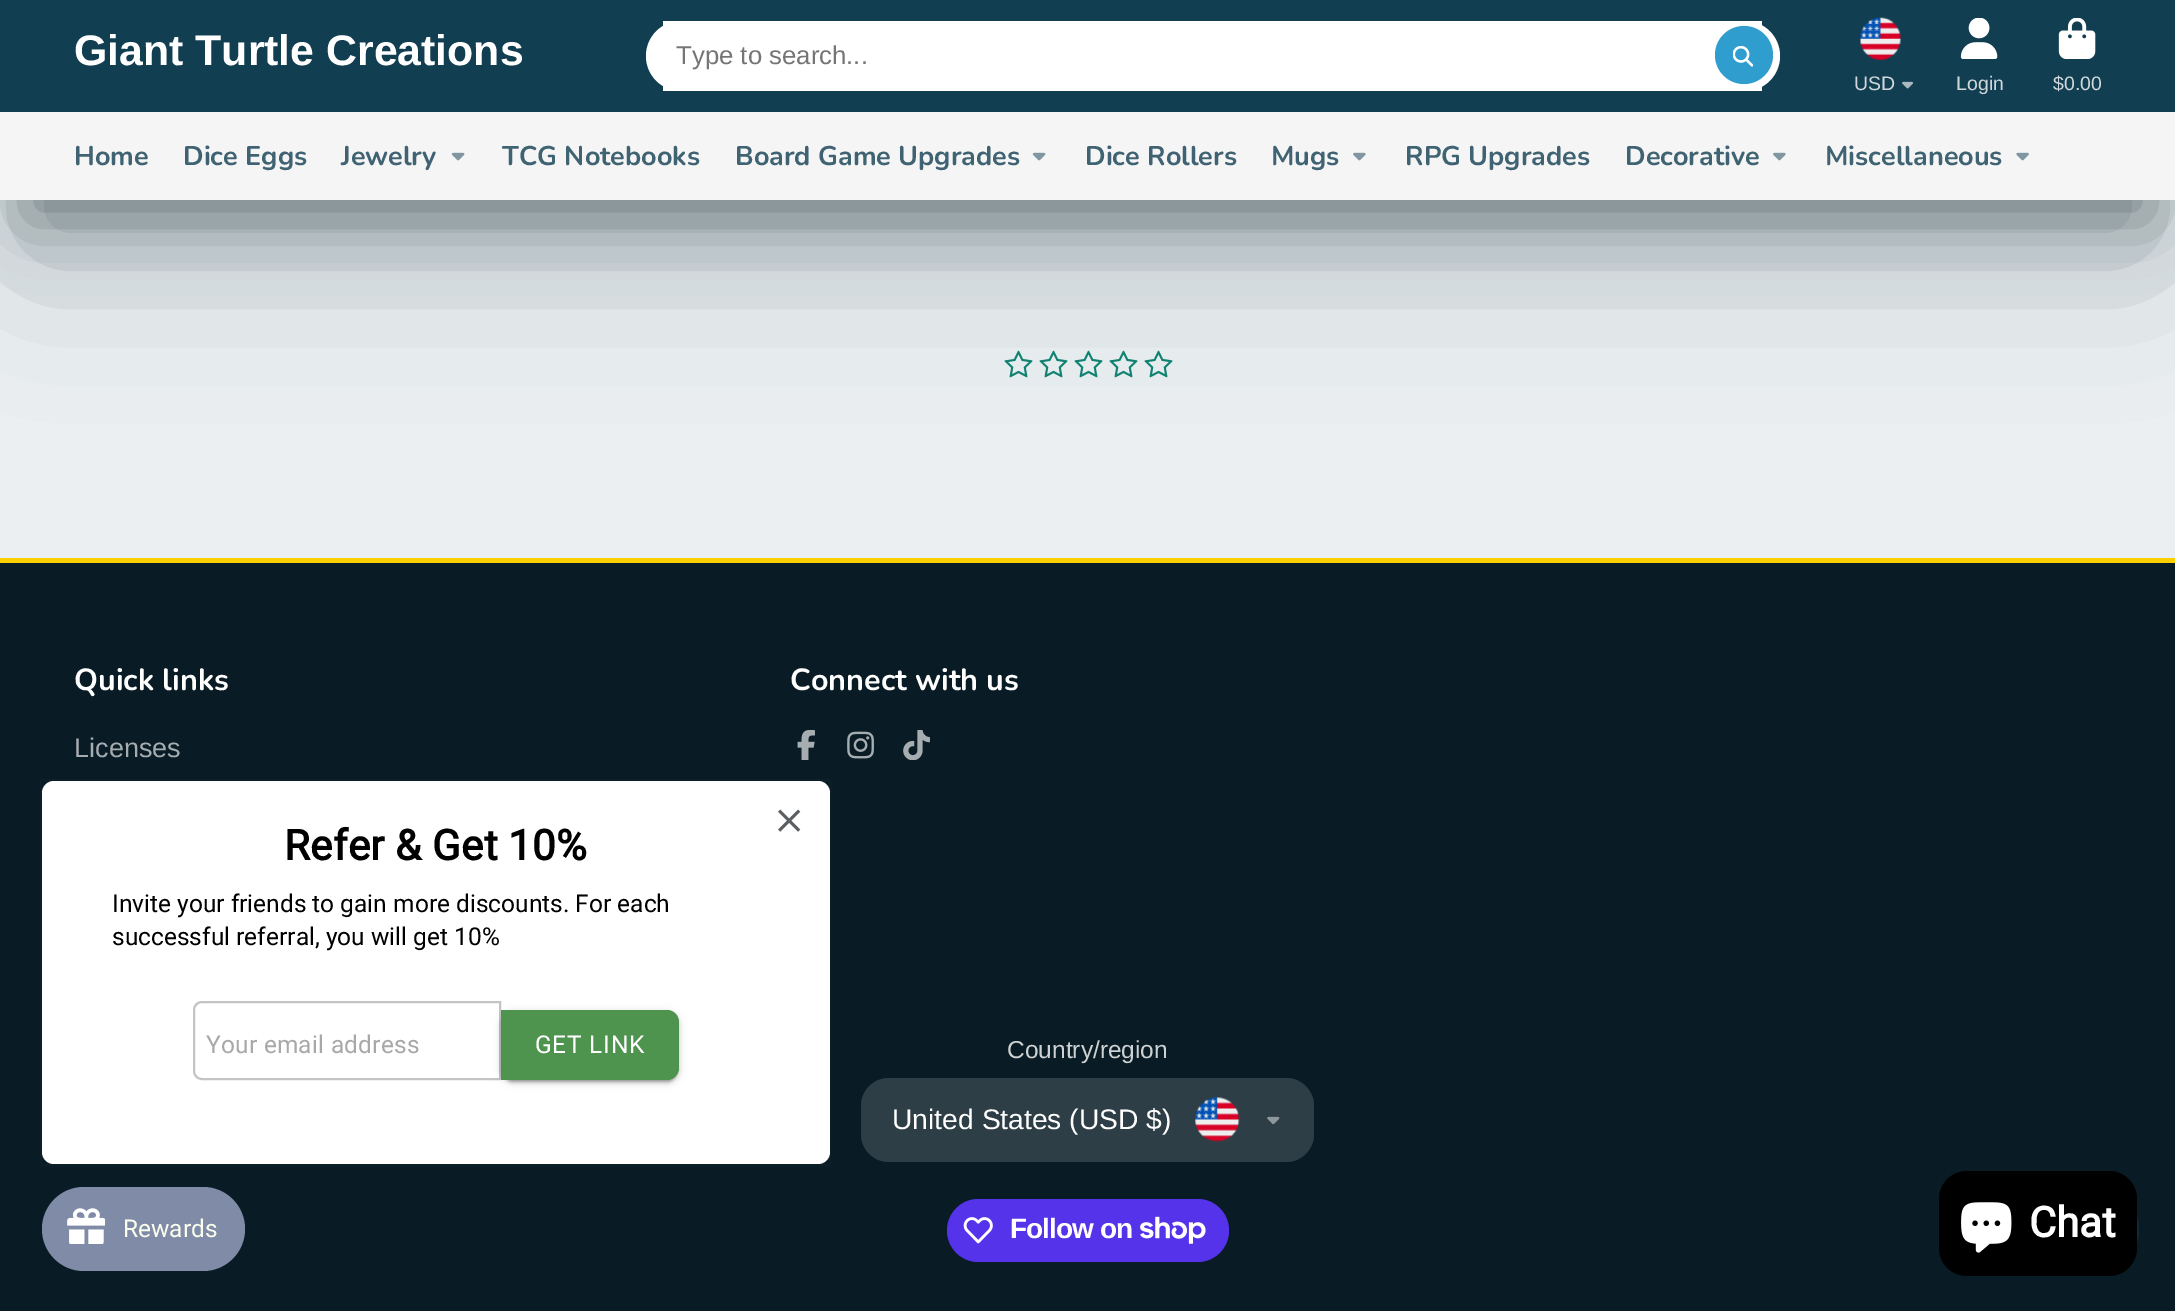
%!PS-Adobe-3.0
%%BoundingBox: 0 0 2175 1311
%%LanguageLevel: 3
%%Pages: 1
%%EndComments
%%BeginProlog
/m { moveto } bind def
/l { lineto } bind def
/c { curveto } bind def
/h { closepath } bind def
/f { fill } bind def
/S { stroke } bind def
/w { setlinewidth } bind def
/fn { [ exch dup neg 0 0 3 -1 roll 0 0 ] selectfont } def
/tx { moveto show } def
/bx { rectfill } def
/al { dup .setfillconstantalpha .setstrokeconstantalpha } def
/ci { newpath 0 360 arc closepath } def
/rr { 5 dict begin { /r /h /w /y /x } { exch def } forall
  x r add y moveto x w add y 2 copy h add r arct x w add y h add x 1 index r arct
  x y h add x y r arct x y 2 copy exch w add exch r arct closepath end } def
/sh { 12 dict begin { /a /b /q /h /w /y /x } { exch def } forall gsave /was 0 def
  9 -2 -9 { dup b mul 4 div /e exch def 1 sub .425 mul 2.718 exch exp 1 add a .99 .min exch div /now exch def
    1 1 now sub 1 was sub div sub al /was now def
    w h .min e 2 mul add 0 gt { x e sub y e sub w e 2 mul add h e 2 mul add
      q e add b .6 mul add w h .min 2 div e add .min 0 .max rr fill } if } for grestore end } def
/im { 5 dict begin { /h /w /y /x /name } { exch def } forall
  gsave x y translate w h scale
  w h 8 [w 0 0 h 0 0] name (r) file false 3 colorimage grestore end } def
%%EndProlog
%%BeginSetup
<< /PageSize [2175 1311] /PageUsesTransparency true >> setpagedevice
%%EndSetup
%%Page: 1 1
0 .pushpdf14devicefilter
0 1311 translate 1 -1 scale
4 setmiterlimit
0.922 0.937 0.945 setrgbcolor
0 0 2175 1311 bx
0.059 0.141 0.176 setrgbcolor
25 70 2126 151 0 33.5 0.4 sh
(image8.raw) 1004 350 29 28 im
(image8.raw) 1039 350 29 28 im
(image8.raw) 1074 350 29 28 im
(image8.raw) 1109 350 29 28 im
(image8.raw) 1144 350 29 28 im
25 102 2126 150 0 76.5 0.3 sh
0.071 0.243 0.318 setrgbcolor
0 0 2175 112 bx
/LiberationSans-Bold 42.8 fn
1 setgray
(Giant Turtle Creations) 74 65 tx
663 21 1099 70 bx
646 21 1134 70 35 rr f
/LiberationSans-Regular 25.75 fn
0.459 setgray
(Type to search...) 676 64 tx
0.184 0.62 0.812 setrgbcolor
1744 55 29 ci f
(image0.raw) 1733 46 20 21 im
(image1.raw) 1860 17 41 43 im
/LiberationSans-Regular 19.5 fn
0.816 0.847 0.863 setrgbcolor
(USD) 1854 90 tx
(image2.raw) 1902 81 11 8 im
(image3.raw) 1960 18 38 41 im
(Login) 1956 90 tx
(image4.raw) 2058 18 38 41 im
($0.00) 2053 90 tx
0.961 setgray
0 112 2175 88 bx
/Nunito-Bold 27 fn
0.247 0.388 0.447 setrgbcolor
(Home) 74 165 tx
(Dice Eggs) 183 165 tx
(Jewelry) 341 165 tx
(image5.raw) 451 152 14 9 im
(TCG Notebooks) 502 165 tx
(Board Game Upgrades) 735 165 tx
(image5.raw) 1032 152 14 9 im
(Dice Rollers) 1085 165 tx
(Mugs) 1271 165 tx
(image6.raw) 1353 152 13 9 im
(RPG Upgrades) 1405 165 tx
(Decorative) 1625 165 tx
(image6.raw) 1773 152 13 9 im
(Miscellaneous) 1825 165 tx
(image7.raw) 2016 152 13 9 im
0.035 0.11 0.145 setrgbcolor
0 563 2175 748 bx
0.984 0.812 0 setrgbcolor
0 558 2175 5 bx
/Nunito-Bold 30.5 fn
1 setgray
(Quick links) 74 690 tx
/LiberationSans-Regular 27 fn
0.651 0.678 0.694 setrgbcolor
(Licenses) 74 757 tx
/Nunito-Bold 30.5 fn
1 setgray
(Connect with us) 790 690 tx
(image9.raw) 797 730 18 30 im
(image10.raw) 847 731 27 28 im
(image11.raw) 903 730 27 30 im
/LiberationSans-Regular 24.5 fn
0.808 0.824 0.827 setrgbcolor
(Country/region) 1007 1058 tx
0.18 0.243 0.275 setrgbcolor
861 1078 453 84 28 rr f
/LiberationSans-Regular 28.25 fn
1 setgray
(United States \(USD $\)) 892 1129 tx
(image12.raw) 1195 1097 45 45 im
(image13.raw) 1267 1116 13 9 im
0.329 0.2 0.922 setrgbcolor
947 1199 282 63 31.5 rr f
(image14.raw) 963 1217 30 27 im
/LiberationSans-Bold 28 fn
1 setgray
1010 1238 m -0.9 0 (Follow on) ashow
(image15.raw) 1140 1216 66 28 im
0.05 al
0.247 0.247 0.267 setrgbcolor
2 w
41 780 789 385 rectstroke
1 al
1 setgray
42 781 788 383 12 rr f
(image16.raw) 778 809 23 23 im
/Roboto-Bold 42 fn
0 setgray
284 860 m 0.25 0 (Refer & Get 10%) ashow
/Roboto-Regular 24.5 fn
(Invite your friends to gain more discounts. For each) 112 912 tx
(successful referral, you will get 10%) 112 945 tx
0.769 setgray
202 1002 m 500 1002 l 500 1079 l 202 1079 l 197.5 1079 194 1075.5 194 1071 c 194 1010 l 194 1005.5 197.5 1002 202 1002 c h S
0.659 setgray
206 1053 m 0.2 0 (Your email address) ashow
0 setgray
501 1012 178 70 12 4.5 0.12 sh
501 1013 178 70 12 2 0.14 sh
504 1019 172 63 9 1 0.2 sh
0.306 0.58 0.31 setrgbcolor
501 1010 m 667 1010 l 673.5 1010 679 1015.5 679 1022 c 679 1068 l 679 1074.5 673.5 1080 667 1080 c 501 1080 l h f
1 setgray
535 1053 m 0.75 0 (GET LINK) ashow
0.502 0.545 0.655 setrgbcolor
42 1187 203 84 42 rr f
(image17.raw) 67 1208 38 36 im
0.988 1 0.933 setrgbcolor
(Rewards) 123 1237 tx
0.067 0.169 0.212 setrgbcolor
2092.5 1229.5 46.5 ci f
0 setgray
1939 1171 198 105 28 rr f
(image18.raw) 1961 1202 51 51 im
/Roboto-Bold 42 fn
1 setgray
(Chat) 2029 1237 tx
.poppdf14devicefilter showpage
%%EOF
